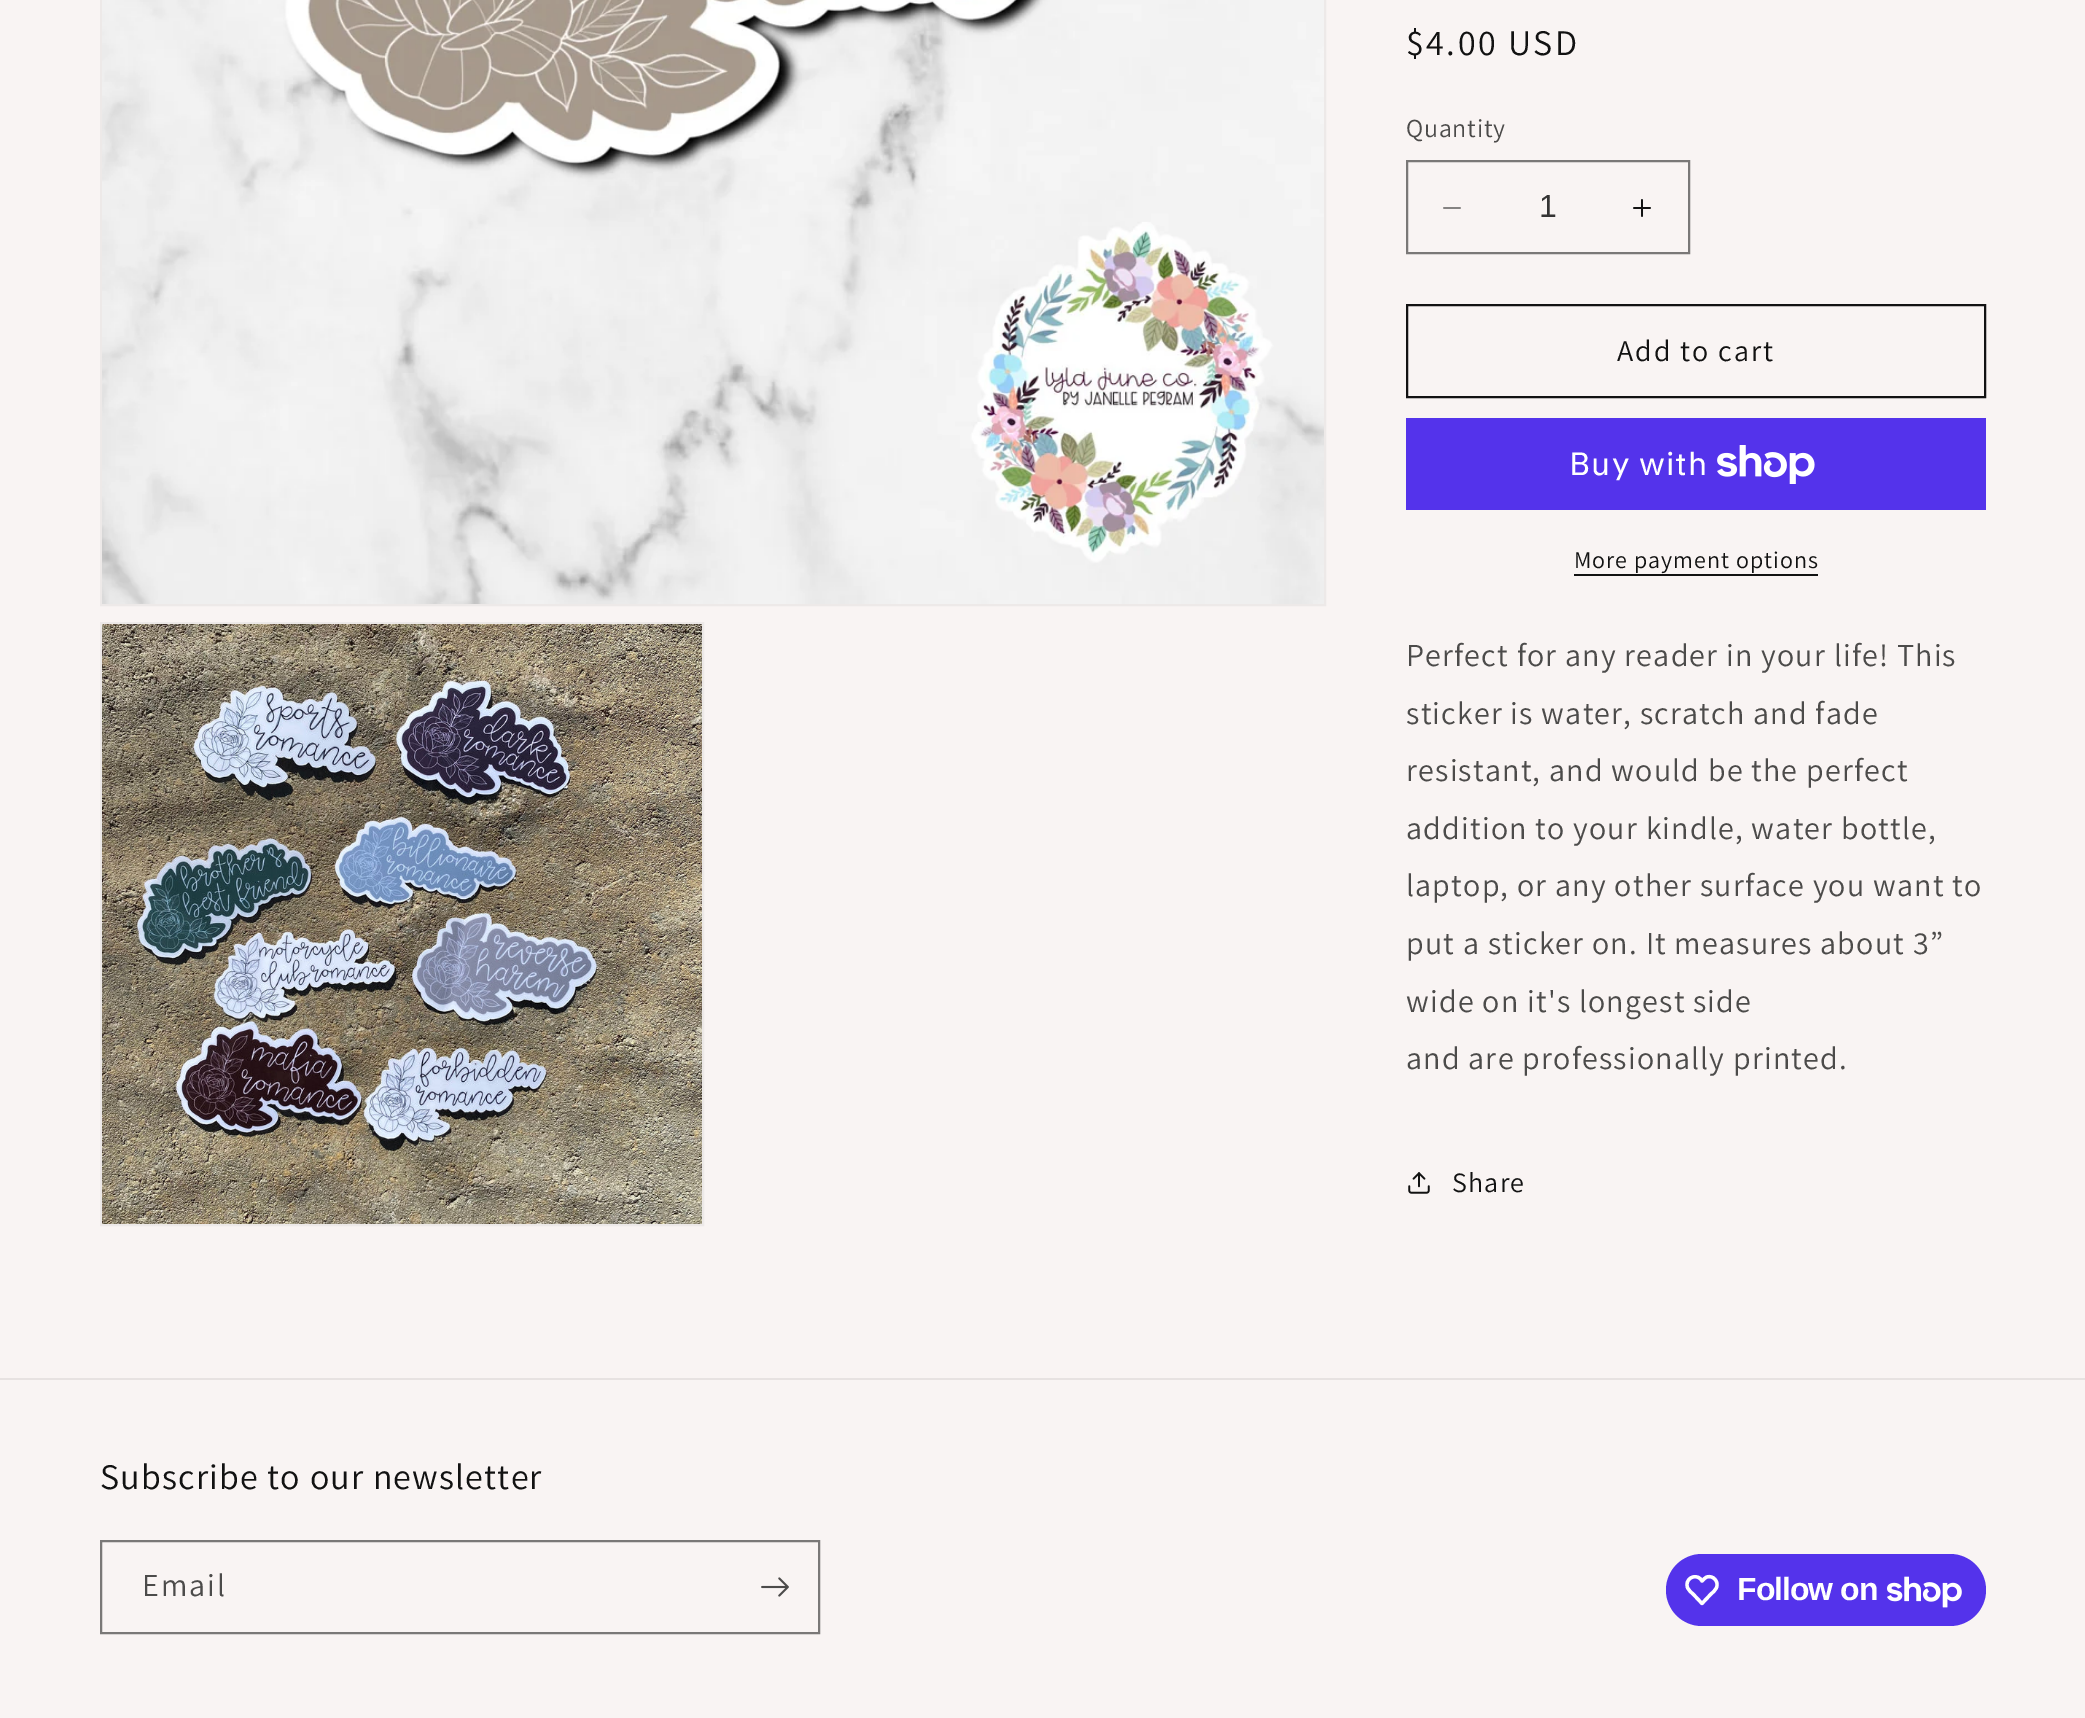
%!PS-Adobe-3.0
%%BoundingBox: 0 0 2085 1718
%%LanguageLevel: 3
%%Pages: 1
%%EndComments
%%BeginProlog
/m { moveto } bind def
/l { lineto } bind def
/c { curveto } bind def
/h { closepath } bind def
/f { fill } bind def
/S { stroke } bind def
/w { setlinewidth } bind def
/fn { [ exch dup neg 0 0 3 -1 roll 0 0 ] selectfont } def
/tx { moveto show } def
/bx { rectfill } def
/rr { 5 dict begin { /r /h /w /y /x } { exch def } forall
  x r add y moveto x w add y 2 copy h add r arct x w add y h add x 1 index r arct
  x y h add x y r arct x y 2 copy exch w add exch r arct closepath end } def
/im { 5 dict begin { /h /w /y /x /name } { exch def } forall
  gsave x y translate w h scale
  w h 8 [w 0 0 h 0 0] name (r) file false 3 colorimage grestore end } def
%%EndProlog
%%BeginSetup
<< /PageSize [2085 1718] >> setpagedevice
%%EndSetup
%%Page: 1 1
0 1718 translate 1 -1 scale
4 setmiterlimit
0.976 0.957 0.953 setrgbcolor
0 0 2085 1718 bx
0.929 0.914 0.91 setrgbcolor
2 w
101 -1 1224 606 rectstroke
(image0.raw) 102 0 1222 604 im
101 623 602 602 rectstroke
(image1.raw) 102 624 600 600 im
/Assistant-Regular 36 fn
0.071 setgray
1406 55 m 2.5 0 ($4.00 USD) ashow
/Assistant-Regular 26 fn
0.298 0.294 0.29 setrgbcolor
1406 137 m 0.75 0 (Quantity) ashow
(image2.raw) 1443 207 18 2 im
(image3.raw) 1633 199 18 18 im
0.478 0.471 0.467 setrgbcolor
1407 161 282 92 rectstroke
/LiberationSans-Regular 32 fn
0.208 0.204 0.204 setrgbcolor
(1) 1539 217 tx
0.071 setgray
1407 305 578 92 rectstroke
/Assistant-Regular 30 fn
1617 361 m 2 0 (Add to cart) ashow
0.329 0.2 0.922 setrgbcolor
1406 418 580 92 bx
/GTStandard-Regular 32 fn
1 setgray
1569 475 m 1.2 0 (Buy with) ashow
(image4.raw) 1717 445 98 39 im
/Assistant-Regular 24 fn
0.071 setgray
1574 568 m 1 0 (More payment options) ashow
1574 574 244 2 bx
/Assistant-Regular 32 fn
0.298 0.294 0.29 setrgbcolor
1406 666 m 1.2 0 (Perfect for any reader in your life! This) ashow
1406 724 m 1.2 0 (sticker is water, scratch and fade) ashow
1406 781 m 1.2 0 (resistant, and would be the perfect) ashow
1406 839 m 1.2 0 (addition to your kindle, water bottle,) ashow
1406 896 m 1.2 0 (laptop, or any other surface you want to) ashow
1406 954 m 1.2 0 (put a sticker on. It measures about 3”) ashow
1406 1012 m 1.2 0 (wide on it's longest side) ashow
1406 1069 m 1.2 0 (and are professionally printed.) ashow
(image5.raw) 1408 1172 22 22 im
/Assistant-Regular 28 fn
0.071 setgray
1452 1192 m 1.2 0 (Share) ashow
0.906 0.886 0.882 setrgbcolor
0 1378 2085 2 bx
/Assistant-Regular 36 fn
0.071 setgray
100 1489 m 1.2 0 (Subscribe to our newsletter) ashow
0.478 0.471 0.467 setrgbcolor
101 1541 718 92 rectstroke
/Assistant-Regular 32 fn
0.298 0.294 0.29 setrgbcolor
142 1596 m 2 0 (Email) ashow
(image6.raw) 761 1577 28 20 im
0.329 0.2 0.922 setrgbcolor
1666 1554 320 72 36 rr f
1 setgray
3.3 w
1 setlinejoin
1700.5 1579 m 1702 1581 l 1703.5 1579.5 1705 1577.5 1707 1577 c 1713 1575 1719 1581.5 1716.5 1587.5 c 1715.5 1590.5 1712.5 1592.5 1710.5 1594.5 c 1702 1603.5 l 1693.5 1594.5 l 1691.5 1592.5 1688.5 1590.5 1687.5 1587.5 c 1684.5 1579.5 1694.5 1573 1700.5 1579 c h S
/LiberationSans-Bold 32 fn
1737 1600 m -1 0 (Follow on) ashow
(image7.raw) 1887 1576 75 32 im
showpage
%%EOF
